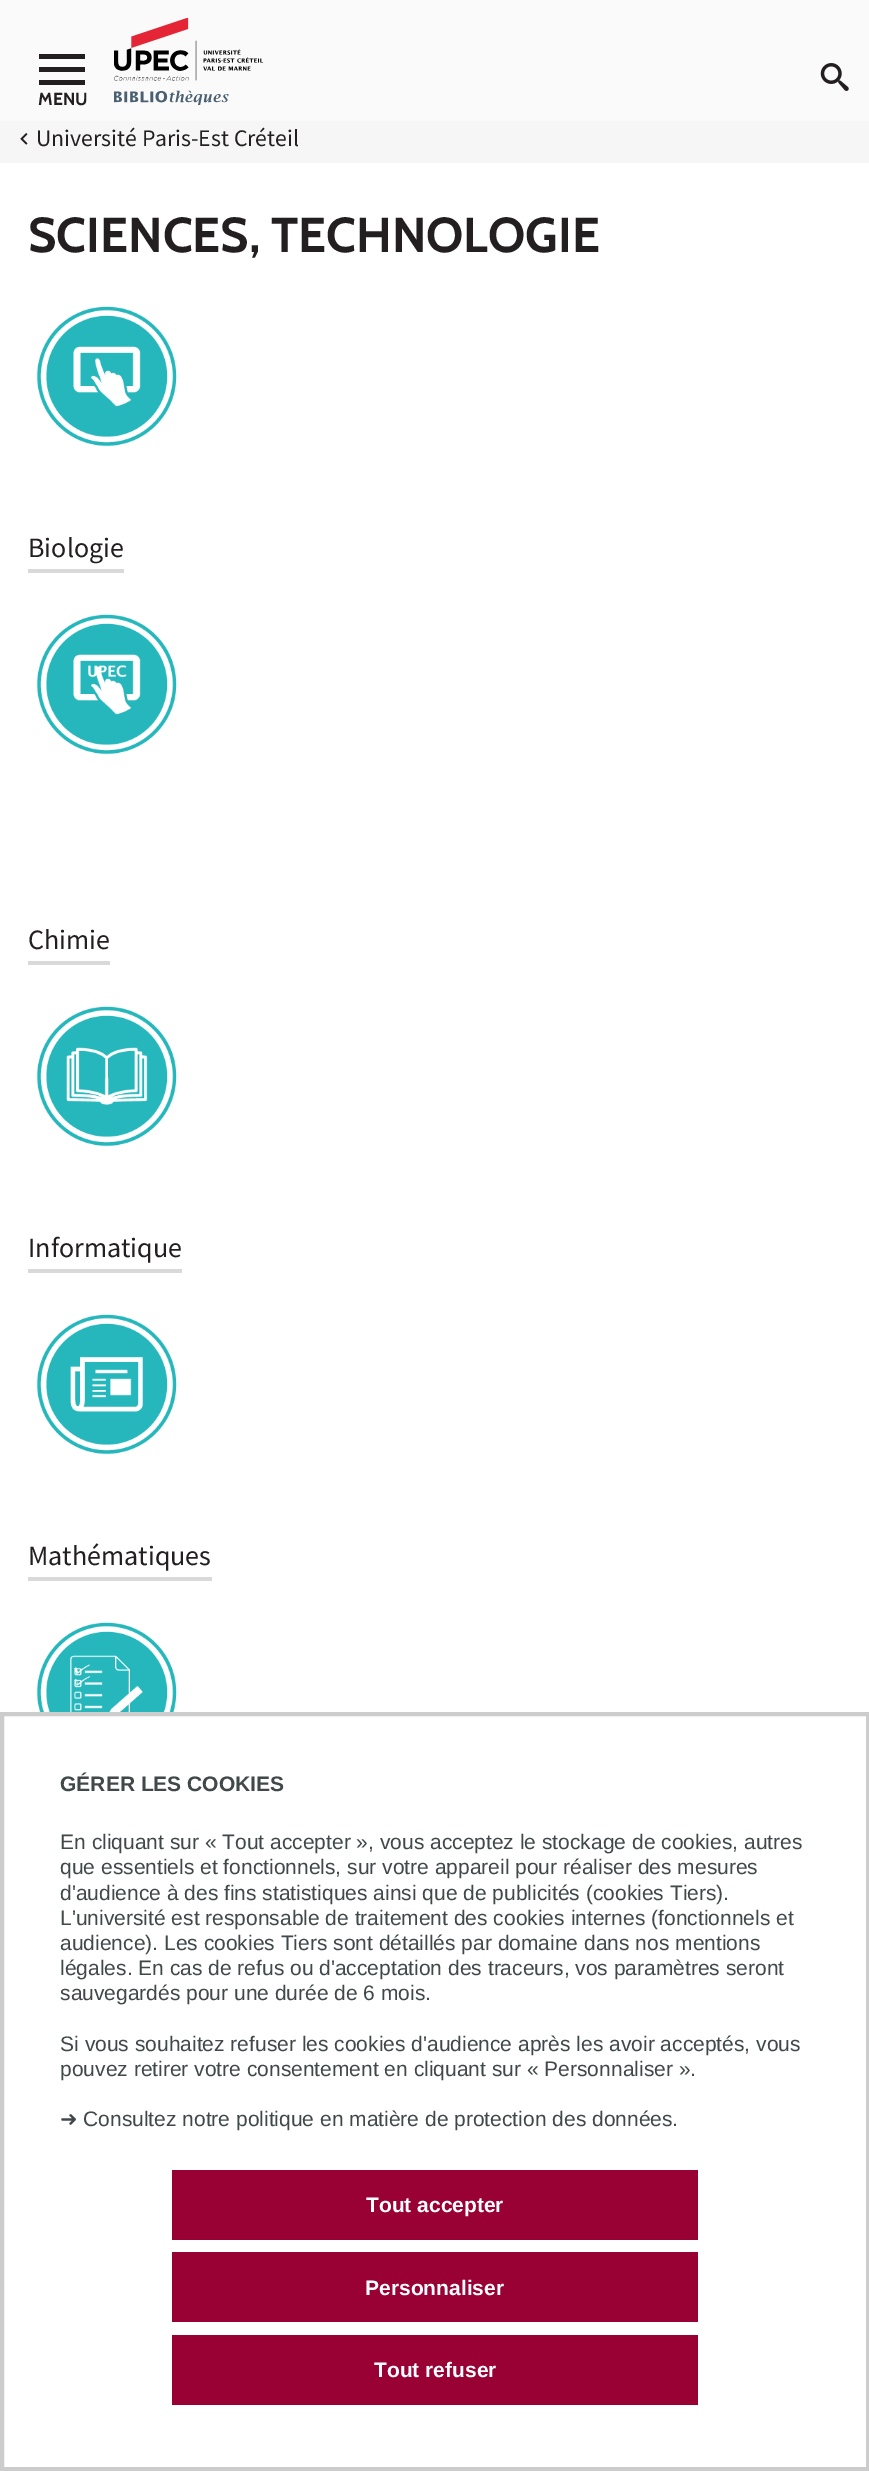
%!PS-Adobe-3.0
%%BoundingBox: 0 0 869 2471
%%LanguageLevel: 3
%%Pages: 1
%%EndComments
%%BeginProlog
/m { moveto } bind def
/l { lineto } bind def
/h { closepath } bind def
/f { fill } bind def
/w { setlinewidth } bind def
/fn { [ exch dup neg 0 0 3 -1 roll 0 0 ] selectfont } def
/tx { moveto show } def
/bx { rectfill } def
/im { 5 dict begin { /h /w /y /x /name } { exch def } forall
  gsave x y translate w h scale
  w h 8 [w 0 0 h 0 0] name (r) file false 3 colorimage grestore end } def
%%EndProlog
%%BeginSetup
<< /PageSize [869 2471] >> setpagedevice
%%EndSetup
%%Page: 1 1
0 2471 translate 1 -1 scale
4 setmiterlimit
1 setgray
0 0 869 2471 bx
0.98 setgray
0 0 869 121 bx
(image0.raw) 114 18 150 87 im
0.137 0.122 0.125 setrgbcolor
39 54 m 85 54 l 85 59 l 39 59 l h 39 72 m 39 67 l 85 67 l 85 72 l h 39 85 m 39 80 l 85 80 l 85 85 l h f
/Cabin-Bold 17.5 fn
(MENU) 38 105 tx
(image1.raw) 820 63 29 28 im
0.965 setgray
0 121 869 42 bx
(image2.raw) 20 133 8 12 im
/SourceSansPro-Regular 23.75 fn
0.137 0.122 0.125 setrgbcolor
(Université Paris-Est Créteil) 36 146 tx
/Cabin-Bold 49 fn
(SCIENCES, TECHNOLOGIE) 28 252 tx
(image3.raw) 36 306 141 141 im
/SourceSansPro-Regular 28 fn
(Biologie) 28 557 tx
0.851 setgray
28 569 96 4 bx
(image4.raw) 36 614 141 141 im
0.137 0.122 0.125 setrgbcolor
(Chimie) 28 949 tx
0.851 setgray
28 961 82 4 bx
(image5.raw) 36 1006 141 141 im
0.137 0.122 0.125 setrgbcolor
(Informatique) 28 1257 tx
0.851 setgray
28 1269 154 4 bx
(image6.raw) 36 1314 141 141 im
0.137 0.122 0.125 setrgbcolor
(Mathématiques) 28 1565 tx
0.851 setgray
28 1577 184 4 bx
(image7.raw) 36 1622 141 90 im
0.8 setgray
4 w
2 1714 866 755 rectstroke
/LiberationSans-Bold 21 fn
0.251 0.282 0.286 setrgbcolor
(GÉRER LES COOKIES) 60 1791 tx
/LiberationSans-Regular 21 fn
(En cliquant sur « Tout accepter », vous acceptez le stockage de cookies, autres) 60 1849 tx
(que essentiels et fonctionnels, sur votre appareil pour réaliser des mesures) 60 1874 tx
(d'audience à des fins statistiques ainsi que de publicités \(cookies Tiers\).) 60 1900 tx
(L'université est responsable de traitement des cookies internes \(fonctionnels et) 60 1925 tx
(audience\). Les cookies Tiers sont détaillés par domaine dans nos mentions) 60 1950 tx
(légales. En cas de refus ou d'acceptation des traceurs, vos paramètres seront) 60 1975 tx
(sauvegardés pour une durée de 6 mois.) 60 2000 tx
(Si vous souhaitez refuser les cookies d'audience après les avoir acceptés, vous) 60 2051 tx
(pouvez retirer votre consentement en cliquant sur « Personnaliser ».) 60 2076 tx
/DejaVuSans-Regular 21 fn
(➜) 60 2126 tx
/LiberationSans-Regular 21 fn
(Consultez notre politique en matière de protection des données.) 83 2126 tx
0.6 0 0.2 setrgbcolor
172 2170 526 70 bx
/LiberationSans-Bold 21 fn
1 setgray
(Tout accepter) 366 2212 tx
0.6 0 0.2 setrgbcolor
172 2252 526 70 bx
1 setgray
(Personnaliser) 365 2295 tx
0.6 0 0.2 setrgbcolor
172 2335 526 70 bx
1 setgray
(Tout refuser) 374 2377 tx
showpage
%%EOF
